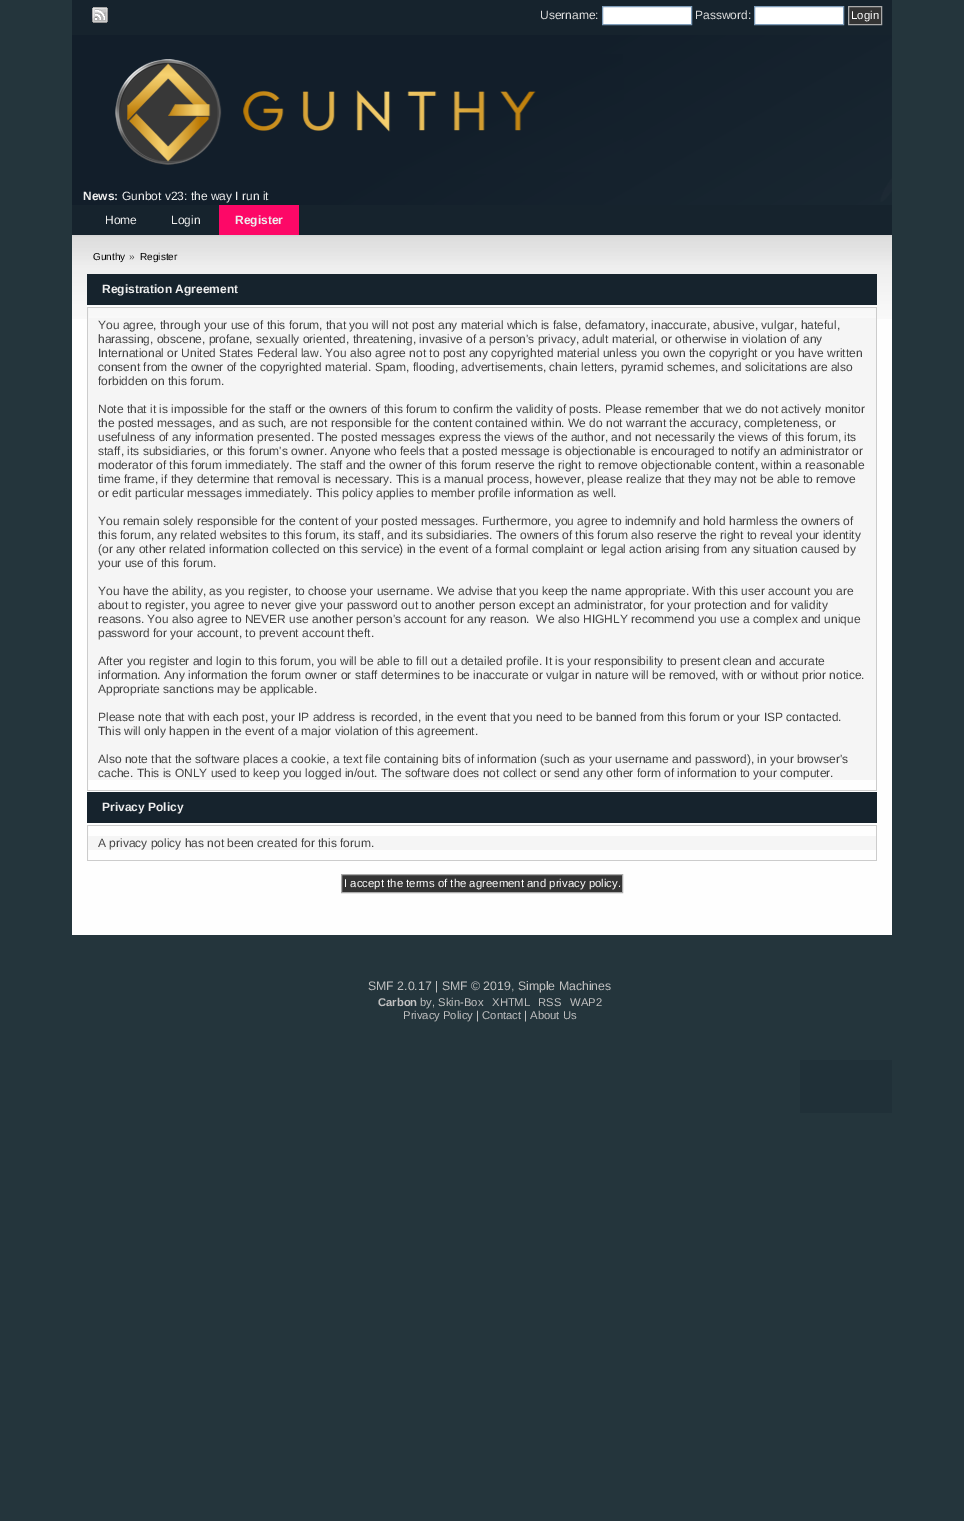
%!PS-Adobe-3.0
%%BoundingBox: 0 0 964 1521
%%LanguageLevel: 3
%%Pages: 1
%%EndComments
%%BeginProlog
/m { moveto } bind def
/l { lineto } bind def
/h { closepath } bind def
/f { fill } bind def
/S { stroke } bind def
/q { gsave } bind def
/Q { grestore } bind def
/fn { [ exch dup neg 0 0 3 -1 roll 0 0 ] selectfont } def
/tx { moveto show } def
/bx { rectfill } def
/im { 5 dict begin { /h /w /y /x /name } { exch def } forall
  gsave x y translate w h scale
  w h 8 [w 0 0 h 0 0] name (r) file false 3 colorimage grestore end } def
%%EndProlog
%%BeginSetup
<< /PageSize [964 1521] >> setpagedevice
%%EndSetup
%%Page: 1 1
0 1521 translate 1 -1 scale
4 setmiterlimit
0.141 0.208 0.235 setrgbcolor
0 0 964 1521 bx
0.086 0.137 0.176 setrgbcolor
72 0 820 35 bx
(image0.raw) 92 7 16 16 im
/LiberationSans-Regular 12 fn
0.871 setgray
(Username:) 540 19 tx
1 setgray
602.5 6.5 m 691.5 6.5 l 691.5 24.5 l 602.5 24.5 l h q f Q
0.498 0.616 0.725 setrgbcolor
S
0.871 setgray
(Password:) 695 19 tx
1 setgray
754.5 6.5 m 843.5 6.5 l 843.5 24.5 l 754.5 24.5 l h q f Q
0.498 0.616 0.725 setrgbcolor
S
0.204 setgray
848.5 6.5 m 881.5 6.5 l 881.5 24.5 l 848.5 24.5 l h q f Q
0.667 setgray
S
/LiberationSans-Regular 11.4 fn
1 setgray
(Login) 851 19 tx
(image1.raw) 72 35 820 170 im
/LiberationSans-Bold 12 fn
0.933 setgray
(News:) 83 200 tx
/LiberationSans-Regular 12 fn
(Gunbot v23: the way I run it) 122 200 tx
0.086 0.137 0.176 setrgbcolor
72 205 820 30 bx
0.933 setgray
(Home) 105 224 tx
(Login) 171 224 tx
0.992 0.031 0.404 setrgbcolor
219 205 80 30 bx
/LiberationSans-Bold 12 fn
0.933 setgray
(Register) 235 224 tx
0.996 setgray
72 319 820 616 bx
(image2.raw) 72 235 820 84 im
/LiberationSans-Regular 10 fn
0 setgray
(Gunthy) 93 260 tx
0.267 setgray
(») 129 260 tx
0 setgray
(Register) 140 260 tx
0.086 0.137 0.176 setrgbcolor
87 274 790 31 bx
/LiberationSans-Bold 12 fn
0.933 setgray
(Registration Agreement) 102 293 tx
(image3.raw) 87 306 790 12 im
0.8 setgray
876 308 1 472 bx
0.961 setgray
88 318 788 462 bx
0.8 setgray
87 318 1 462 bx
/LiberationSans-Regular 12 fn
0.267 setgray
(You agree, through your use of this forum, that you will not post any material which is false, defamatory, inaccurate, abusive, vulgar, hateful,) 98 329 tx
(harassing, obscene, profane, sexually oriented, threatening, invasive of a person's privacy, adult material, or otherwise in violation of any) 98 343 tx
(International or United States Federal law. You also agree not to post any copyrighted material unless you own the copyright or you have written) 98 357 tx
(consent from the owner of the copyrighted material. Spam, flooding, advertisements, chain letters, pyramid schemes, and solicitations are also) 98 371 tx
(forbidden on this forum.) 98 385 tx
(Note that it is impossible for the staff or the owners of this forum to confirm the validity of posts. Please remember that we do not actively monitor) 98 413 tx
(the posted messages, and as such, are not responsible for the content contained within. We do not warrant the accuracy, completeness, or) 98 427 tx
(usefulness of any information presented. The posted messages express the views of the author, and not necessarily the views of this forum, its) 98 441 tx
(staff, its subsidiaries, or this forum's owner. Anyone who feels that a posted message is objectionable is encouraged to notify an administrator or) 98 455 tx
(moderator of this forum immediately. The staff and the owner of this forum reserve the right to remove objectionable content, within a reasonable) 98 469 tx
(time frame, if they determine that removal is necessary. This is a manual process, however, please realize that they may not be able to remove) 98 483 tx
(or edit particular messages immediately. This policy applies to member profile information as well.) 98 497 tx
(You remain solely responsible for the content of your posted messages. Furthermore, you agree to indemnify and hold harmless the owners of) 98 525 tx
(this forum, any related websites to this forum, its staff, and its subsidiaries. The owners of this forum also reserve the right to reveal your identity) 98 539 tx
(\(or any other related information collected on this service\) in the event of a formal complaint or legal action arising from any situation caused by) 98 553 tx
(your use of this forum.) 98 567 tx
(You have the ability, as you register, to choose your username. We advise that you keep the name appropriate. With this user account you are) 98 595 tx
(about to register, you agree to never give your password out to another person except an administrator, for your protection and for validity) 98 609 tx
(reasons. You also agree to NEVER use another person's account for any reason.  We also HIGHLY recommend you use a complex and unique) 98 623 tx
(password for your account, to prevent account theft.) 98 637 tx
(After you register and login to this forum, you will be able to fill out a detailed profile. It is your responsibility to present clean and accurate) 98 665 tx
(information. Any information the forum owner or staff determines to be inaccurate or vulgar in nature will be removed, with or without prior notice.) 98 679 tx
(Appropriate sanctions may be applicable.) 98 693 tx
(Please note that with each post, your IP address is recorded, in the event that you need to be banned from this forum or your ISP contacted.) 98 721 tx
(This will only happen in the event of a major violation of this agreement.) 98 735 tx
(Also note that the software places a cookie, a text file containing bits of information \(such as your username and password\), in your browser's) 98 763 tx
(cache. This is ONLY used to keep you logged in/out. The software does not collect or send any other form of information to your computer.) 98 777 tx
(image4.raw) 87 780 790 11 im
0.8 setgray
876 780 1 10 bx
0.086 0.137 0.176 setrgbcolor
87 792 790 31 bx
/LiberationSans-Bold 12 fn
0.933 setgray
(Privacy Policy) 102 811 tx
(image5.raw) 87 825 790 11 im
0.8 setgray
876 826 1 24 bx
0.961 setgray
88 836 788 14 bx
0.8 setgray
87 836 1 14 bx
/LiberationSans-Regular 12 fn
0.267 setgray
(A privacy policy has not been created for this forum.) 98 847 tx
(image4.raw) 87 850 790 11 im
0.8 setgray
876 850 1 10 bx
0.204 setgray
341.5 874.5 m 622.5 874.5 l 622.5 892.5 l 341.5 892.5 l h q f Q
0.667 setgray
S
/LiberationSans-Regular 11.4 fn
1 setgray
(I accept the terms of the agreement and privacy policy.) 344 887 tx
0.125 0.188 0.22 setrgbcolor
800 1060 92 53 bx
/LiberationSans-Regular 12.3 fn
0.757 setgray
(SMF 2.0.17 | SMF © 2019, Simple Machines) 368 990 tx
/LiberationSans-Bold 11.25 fn
(Carbon) 378 1006 tx
/LiberationSans-Regular 11.25 fn
(by, Skin-Box) 420 1006 tx
(XHTML) 492 1006 tx
(RSS) 538 1006 tx
(WAP2) 570 1006 tx
(Privacy Policy | Contact | About Us) 403 1019 tx
showpage
%%EOF
